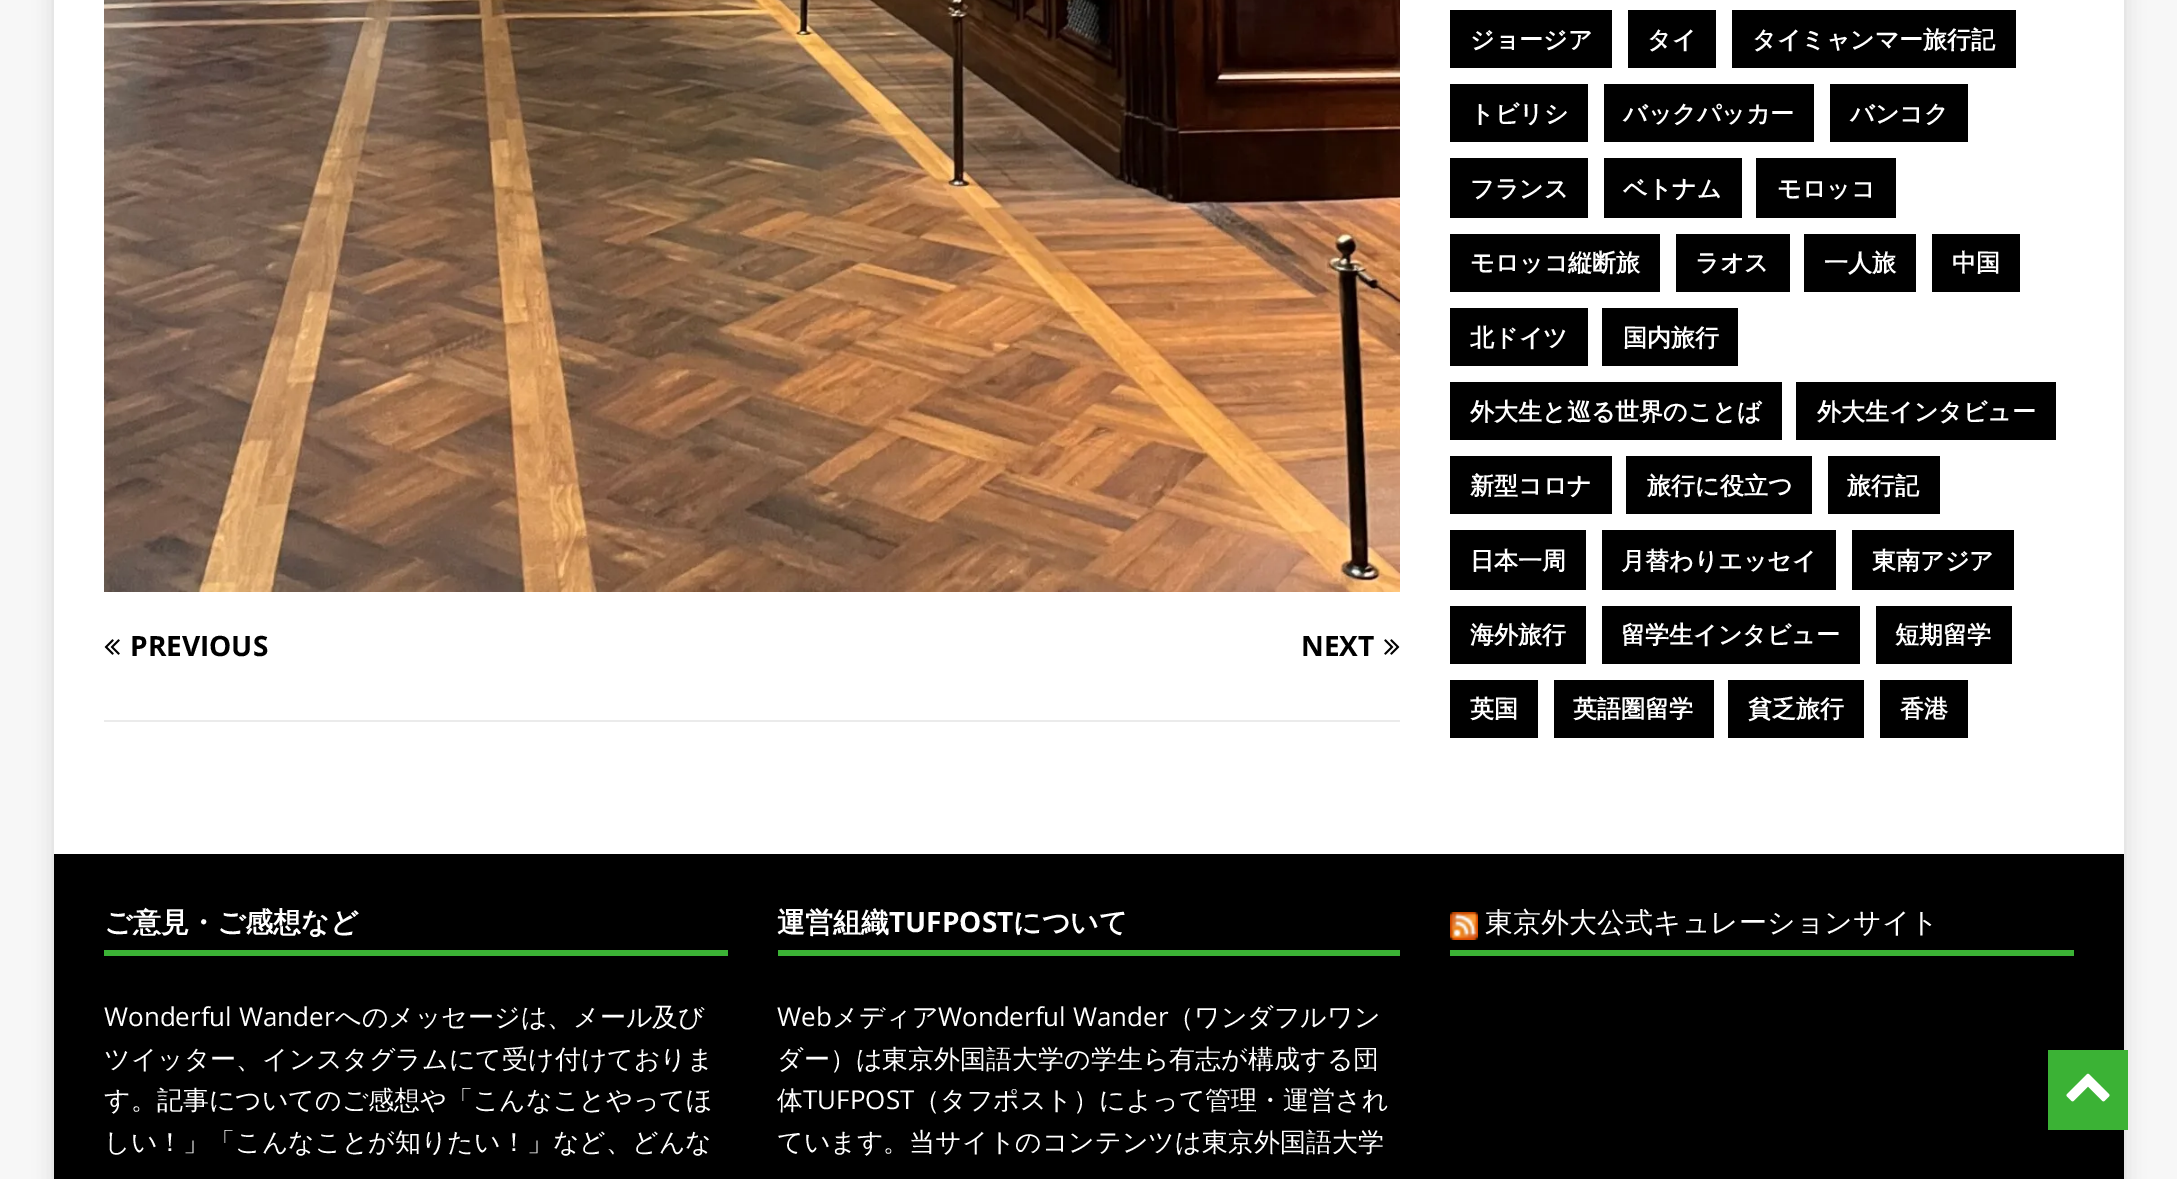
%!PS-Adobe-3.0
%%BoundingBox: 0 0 2177 1179
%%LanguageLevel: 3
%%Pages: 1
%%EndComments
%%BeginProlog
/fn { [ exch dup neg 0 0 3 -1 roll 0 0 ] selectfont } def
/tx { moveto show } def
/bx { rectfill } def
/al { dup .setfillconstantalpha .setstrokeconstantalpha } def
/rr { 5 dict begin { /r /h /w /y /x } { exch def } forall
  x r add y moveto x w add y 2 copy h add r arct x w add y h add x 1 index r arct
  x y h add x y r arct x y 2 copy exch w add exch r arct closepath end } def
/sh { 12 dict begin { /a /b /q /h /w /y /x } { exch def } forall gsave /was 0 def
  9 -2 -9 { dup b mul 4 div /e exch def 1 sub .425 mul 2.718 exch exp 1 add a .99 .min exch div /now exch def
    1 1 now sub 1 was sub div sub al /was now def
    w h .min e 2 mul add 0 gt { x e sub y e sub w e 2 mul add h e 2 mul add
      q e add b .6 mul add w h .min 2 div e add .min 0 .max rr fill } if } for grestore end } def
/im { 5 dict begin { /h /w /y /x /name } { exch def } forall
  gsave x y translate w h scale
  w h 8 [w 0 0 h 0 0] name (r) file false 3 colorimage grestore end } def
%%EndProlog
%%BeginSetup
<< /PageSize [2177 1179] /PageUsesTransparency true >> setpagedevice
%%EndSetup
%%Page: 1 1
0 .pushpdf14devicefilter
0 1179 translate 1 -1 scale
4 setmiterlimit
0.969 setgray
0 0 2177 1179 bx
0.196 setgray
54 -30 2070 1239 0 10 0.17 sh
1 setgray
54 0 2070 854 bx
(image0.raw) 104 0 1296 592 im
0.922 setgray
104 720 1296 2 bx
(image1.raw) 104 639 16 16 im
/OpenSans-Bold 28 fn
0 setgray
(PREVIOUS) 130 656 tx
(NEXT) 1301 656 tx
(image2.raw) 1384 639 16 16 im
1450 10 162 58 bx
/WenQuanYiZenHei-Bold 24 fn
1 setgray
(ジョージア) 1470 48 tx
0 setgray
1628 10 88 58 bx
1 setgray
(タイ) 1647 48 tx
0 setgray
1732 10 284 58 bx
1 setgray
(タイミャンマー旅行記) 1752 48 tx
0 setgray
1450 84 138 58 bx
1 setgray
(トビリシ) 1470 122 tx
0 setgray
1604 84 210 58 bx
1 setgray
(バックパッカー) 1623 122 tx
0 setgray
1830 84 138 58 bx
1 setgray
(バンコク) 1850 122 tx
0 setgray
1450 158 138 60 bx
1 setgray
(フランス) 1470 197 tx
0 setgray
1604 158 138 60 bx
1 setgray
(ベトナム) 1623 197 tx
0 setgray
1756 158 140 60 bx
1 setgray
(モロッコ) 1777 197 tx
0 setgray
1450 234 210 58 bx
1 setgray
(モロッコ縦断旅) 1470 271 tx
0 setgray
1676 234 114 58 bx
1 setgray
(ラオス) 1695 271 tx
0 setgray
1804 234 112 58 bx
1 setgray
(一人旅) 1824 271 tx
0 setgray
1932 234 88 58 bx
1 setgray
(中国) 1952 271 tx
0 setgray
1450 308 138 58 bx
1 setgray
(北ドイツ) 1470 346 tx
0 setgray
1602 308 136 58 bx
1 setgray
(国内旅行) 1623 346 tx
0 setgray
1450 382 332 58 bx
1 setgray
(外大生と巡る世界のことば) 1470 420 tx
0 setgray
1796 382 260 58 bx
1 setgray
(外大生インタビュー) 1817 420 tx
0 setgray
1450 456 162 58 bx
1 setgray
(新型コロナ) 1470 494 tx
0 setgray
1626 456 186 58 bx
1 setgray
(旅行に役立つ) 1647 494 tx
0 setgray
1828 456 112 58 bx
1 setgray
(旅行記) 1847 494 tx
0 setgray
1450 530 136 60 bx
1 setgray
(日本一周) 1470 569 tx
0 setgray
1602 530 234 60 bx
1 setgray
(月替わりエッセイ) 1621 569 tx
0 setgray
1852 530 162 60 bx
1 setgray
(東南アジア) 1872 569 tx
0 setgray
1450 606 136 58 bx
1 setgray
(海外旅行) 1470 643 tx
0 setgray
1602 606 258 58 bx
1 setgray
(留学生インタビュー) 1621 643 tx
0 setgray
1876 606 136 58 bx
1 setgray
(短期留学) 1895 643 tx
0 setgray
1450 680 88 58 bx
1 setgray
(英国) 1470 717 tx
0 setgray
1554 680 160 58 bx
1 setgray
(英語圏留学) 1573 717 tx
0 setgray
1728 680 136 58 bx
1 setgray
(貧乏旅行) 1748 717 tx
0 setgray
1880 680 88 58 bx
1 setgray
(香港) 1900 717 tx
0 setgray
54 854 2070 325 bx
0.231 0.698 0.208 setrgbcolor
104 950 624 6 bx
/WenQuanYiZenHei-Bold 28 fn
1 setgray
(ご意見・ご感想など) 104 932 tx
/OpenSans-Regular 26 fn
(Wonderful Wander) 104 1026 tx
/WenQuanYiZenHei-Medium 26 fn
(へのメッセージは、メール及び) 335 1026 tx
(ツイッター、インスタグラムにて受け付けておりま) 104 1068 tx
(す。記事についてのご感想や「こんなことやってほ) 104 1109 tx
(しい！」「こんなことが知りたい！」など、どんな) 104 1151 tx
0.231 0.698 0.208 setrgbcolor
778 950 622 6 bx
/WenQuanYiZenHei-Bold 28 fn
1 setgray
(運営組織) 777 932 tx
/OpenSans-Bold 28 fn
(TUFPOST) 889 932 tx
/WenQuanYiZenHei-Bold 28 fn
(について) 1013 932 tx
/OpenSans-Regular 26 fn
(Web) 777 1026 tx
/WenQuanYiZenHei-Medium 26 fn
(メディア) 832 1026 tx
/OpenSans-Regular 26 fn
(Wonderful Wander) 938 1026 tx
/WenQuanYiZenHei-Medium 26 fn
(（ワンダフルワン) 1168 1026 tx
(ダー）は東京外国語大学の学生ら有志が構成する団) 777 1068 tx
(体) 777 1109 tx
/OpenSans-Regular 26 fn
(TUFPOST) 803 1109 tx
/WenQuanYiZenHei-Medium 26 fn
(（タフポスト）によって管理・運営され) 914 1109 tx
(ています。当サイトのコンテンツは東京外国語大学) 777 1151 tx
0.231 0.698 0.208 setrgbcolor
1450 950 624 6 bx
(image3.raw) 1450 912 28 28 im
/WenQuanYiZenHei-Medium 28 fn
1 setgray
(東京外大公式キュレーションサイト) 1485 932 tx
0.231 0.698 0.208 setrgbcolor
2048 1050 80 80 bx
(image4.raw) 2066 1073 44 29 im
.poppdf14devicefilter showpage
%%EOF
